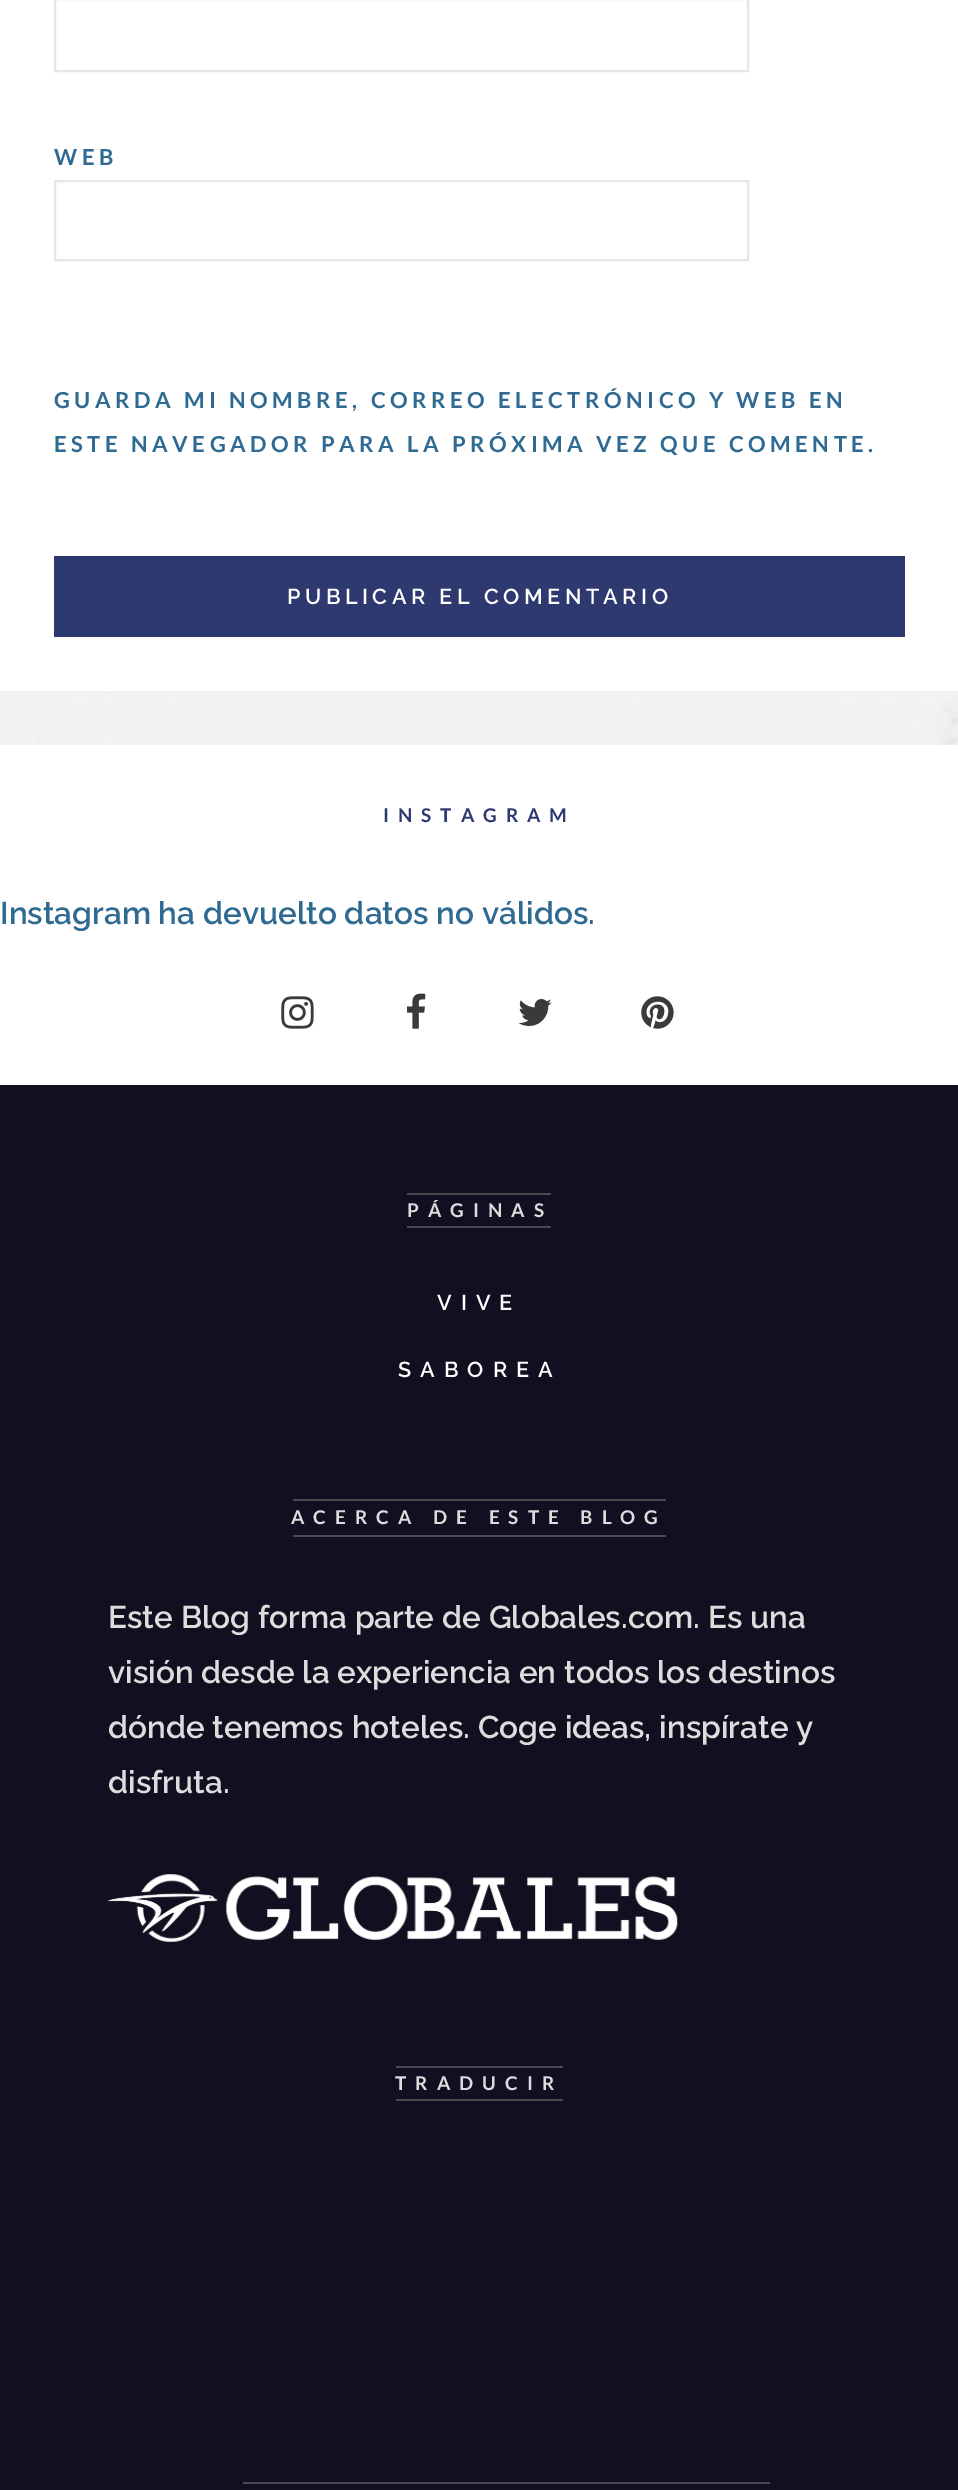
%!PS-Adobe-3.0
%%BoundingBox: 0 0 958 2490
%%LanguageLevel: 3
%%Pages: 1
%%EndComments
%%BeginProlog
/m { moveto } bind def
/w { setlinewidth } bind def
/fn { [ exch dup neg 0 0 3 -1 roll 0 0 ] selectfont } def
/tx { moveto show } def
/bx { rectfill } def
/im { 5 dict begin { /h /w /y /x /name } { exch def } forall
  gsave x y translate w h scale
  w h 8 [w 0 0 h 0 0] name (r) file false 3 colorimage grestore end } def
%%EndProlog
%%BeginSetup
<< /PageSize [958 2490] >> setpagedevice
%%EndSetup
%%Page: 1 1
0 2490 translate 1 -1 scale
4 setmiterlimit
1 setgray
0 0 958 2490 bx
(image0.raw) 0 691 958 54 im
0.898 0.898 0.933 setrgbcolor
2 w
55 -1 693 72 rectstroke
/Lato-Bold 22.05 fn
0.184 0.416 0.573 setrgbcolor
54 165 m 4.5 0 (WEB) ashow
0.898 0.898 0.933 setrgbcolor
55 181 693 79 rectstroke
0.184 0.416 0.573 setrgbcolor
54 408 m 4.5 0 (GUARDA MI NOMBRE, CORREO ELECTRÓNICO Y WEB EN) ashow
54 452 m 4.5 0 (ESTE NAVEGADOR PARA LA PRÓXIMA VEZ QUE COMENTE.) ashow
0.18 0.224 0.439 setrgbcolor
54 556 851 81 bx
/Raleway-SemiBold 21.6 fn
1 setgray
287 604 m 4.5 0 (PUBLICAR EL COMENTARIO) ashow
/Lato-Bold 18.9 fn
0.18 0.224 0.439 setrgbcolor
383 822 m 9 0 (INSTAGRAM) ashow
/Raleway-SemiBold 31.5 fn
0.184 0.416 0.573 setrgbcolor
(Instagram ha devuelto datos no válidos.) 0 924 tx
(image1.raw) 281 996 33 33 im
(image2.raw) 407 993 19 36 im
(image3.raw) 518 999 34 27 im
(image4.raw) 641 996 33 33 im
0.063 0.063 0.125 setrgbcolor
0 1085 958 1405 bx
0.29 0.29 0.298 setrgbcolor
407 1193 144 2 bx
/Lato-Bold 18.9 fn
0.867 setgray
407 1217 m 9 0 (PÁGINAS) ashow
0.29 0.29 0.298 setrgbcolor
407 1226 144 2 bx
/Raleway-SemiBold 21.6 fn
1 setgray
437 1310 m 9 0 (VIVE) ashow
398 1377 m 9 0 (SABOREA) ashow
0.29 0.29 0.298 setrgbcolor
293 1499 373 2 bx
/Lato-Bold 18.9 fn
0.867 setgray
291 1524 m 9 0 (ACERCA DE ESTE BLOG) ashow
0.29 0.29 0.298 setrgbcolor
293 1535 373 2 bx
/Raleway-SemiBold 31.5 fn
0.867 setgray
(Este Blog forma parte de Globales.com. Es una) 108 1628 tx
(visión desde la experiencia en todos los destinos) 108 1683 tx
(dónde tenemos hoteles. Coge ideas, inspírate y) 108 1738 tx
(disfruta.) 108 1793 tx
(image5.raw) 108 1874 570 68 im
0.29 0.29 0.298 setrgbcolor
396 2066 167 2 bx
/Lato-Bold 18.9 fn
0.867 setgray
395 2090 m 9 0 (TRADUCIR) ashow
0.29 0.29 0.298 setrgbcolor
396 2099 167 2 bx
243 2482 527 2 bx
showpage
%%EOF
